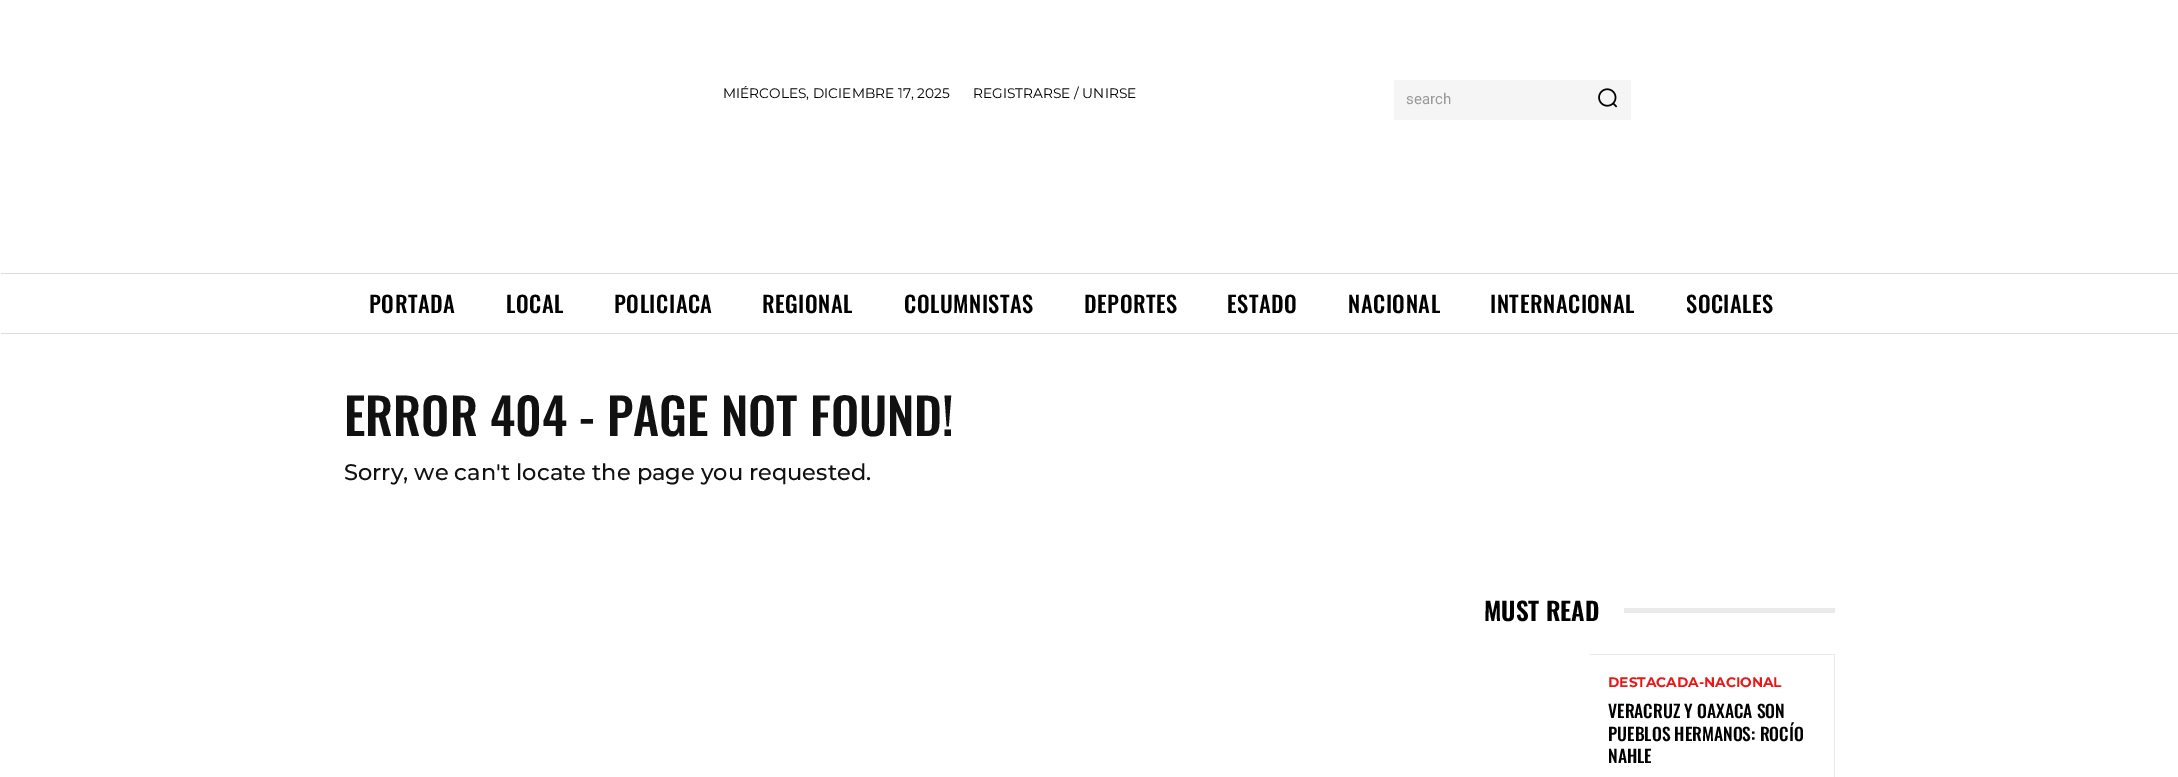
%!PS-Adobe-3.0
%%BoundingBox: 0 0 2178 777
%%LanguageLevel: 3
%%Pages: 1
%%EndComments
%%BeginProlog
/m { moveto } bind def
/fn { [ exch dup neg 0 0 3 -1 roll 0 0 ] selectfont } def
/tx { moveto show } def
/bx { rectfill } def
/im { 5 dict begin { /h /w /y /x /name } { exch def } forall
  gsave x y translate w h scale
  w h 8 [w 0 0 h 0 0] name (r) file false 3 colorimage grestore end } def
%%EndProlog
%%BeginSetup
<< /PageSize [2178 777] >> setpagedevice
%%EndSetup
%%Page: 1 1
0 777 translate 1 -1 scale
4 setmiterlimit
1 setgray
0 0 2178 777 bx
/Montserrat-Regular 13.75 fn
0 setgray
(MIÉRCOLES, DICIEMBRE 17, 2025) 723 98 tx
(REGISTRARSE / UNIRSE) 973 98 tx
0.961 setgray
1394 80 237 40 bx
/Roboto-Regular 15 fn
0.6 setgray
(search) 1406 104 tx
(image0.raw) 1598 88 20 20 im
0.867 setgray
1 273 2177 1 bx
1 333 2177 1 bx
/Oswald-Medium 22.5 fn
0 setgray
369 313 m 0.5 0 (PORTADA) ashow
506 313 m 0.5 0 (LOCAL) ashow
614 313 m 0.5 0 (POLICIACA) ashow
762 313 m 0.5 0 (REGIONAL) ashow
904 313 m 0.5 0 (COLUMNISTAS) ashow
1084 313 m 0.5 0 (DEPORTES) ashow
1227 313 m 0.5 0 (ESTADO) ashow
1348 313 m 0.5 0 (NACIONAL) ashow
1490 313 m 0.5 0 (INTERNACIONAL) ashow
1686 313 m 0.5 0 (SOCIALES) ashow
/Oswald-Medium 50 fn
0.067 setgray
(ERROR 404 - PAGE NOT FOUND!) 344 436 tx
/Montserrat-Medium 22.5 fn
(Sorry, we can't locate the page you requested.) 344 480 tx
/Oswald-SemiBold 25 fn
0 setgray
(MUST READ) 1484 621 tx
0.918 setgray
1624 608 211 5 bx
1590 654 245 1 bx
1834 654 1 123 bx
/Montserrat-Bold 13.75 fn
0.918 0.09 0.09 setrgbcolor
(DESTACADA-NACIONAL) 1608 687 tx
/Oswald-Medium 17.5 fn
0 setgray
(VERACRUZ Y OAXACA SON) 1608 718 tx
(PUEBLOS HERMANOS: ROCÍO) 1608 741 tx
(NAHLE) 1608 763 tx
showpage
%%EOF
